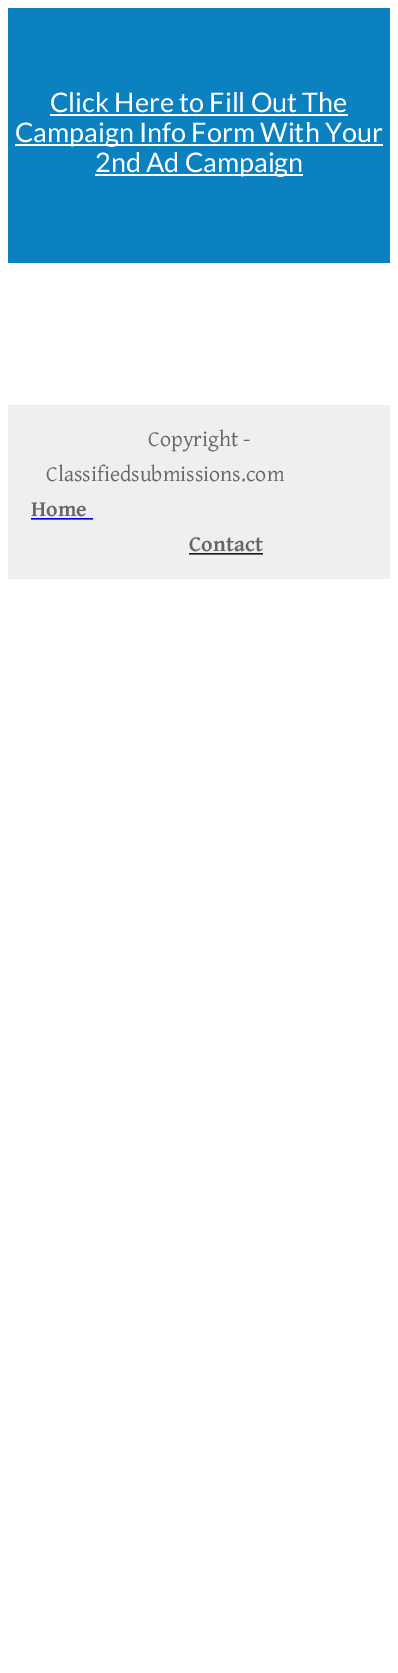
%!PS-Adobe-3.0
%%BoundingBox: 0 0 398 1673
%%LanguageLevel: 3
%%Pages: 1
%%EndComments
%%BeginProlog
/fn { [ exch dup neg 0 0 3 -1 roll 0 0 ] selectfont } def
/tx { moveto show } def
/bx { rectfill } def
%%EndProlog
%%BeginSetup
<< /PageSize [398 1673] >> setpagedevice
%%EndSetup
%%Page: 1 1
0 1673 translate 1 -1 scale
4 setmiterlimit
1 setgray
0 0 398 1673 bx
0.047 0.506 0.749 setrgbcolor
8 8 382 255 bx
/Lato-Regular 27 fn
1 setgray
(Click Here to Fill Out The) 50 112 tx
50 114 298 2 bx
15 144 368 2 bx
(Campaign Info Form With Your) 15 142 tx
95 174 208 2 bx
(2nd Ad Campaign) 95 172 tx
0.937 setgray
8 405 382 174 bx
/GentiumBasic-Regular 22 fn
0.4 setgray
(Copyright -) 148 446 tx
(Classifiedsubmissions.com) 46 481 tx
/GentiumBasic-Bold 22 fn
(Home) 31 516 tx
31 519 62 1 bx
0 0 0.933 setrgbcolor
31 518 62 1 bx
0.4 setgray
(Contact) 189 551 tx
189 554 74 1 bx
0 0 0.933 setrgbcolor
189 553 74 1 bx
showpage
%%EOF
